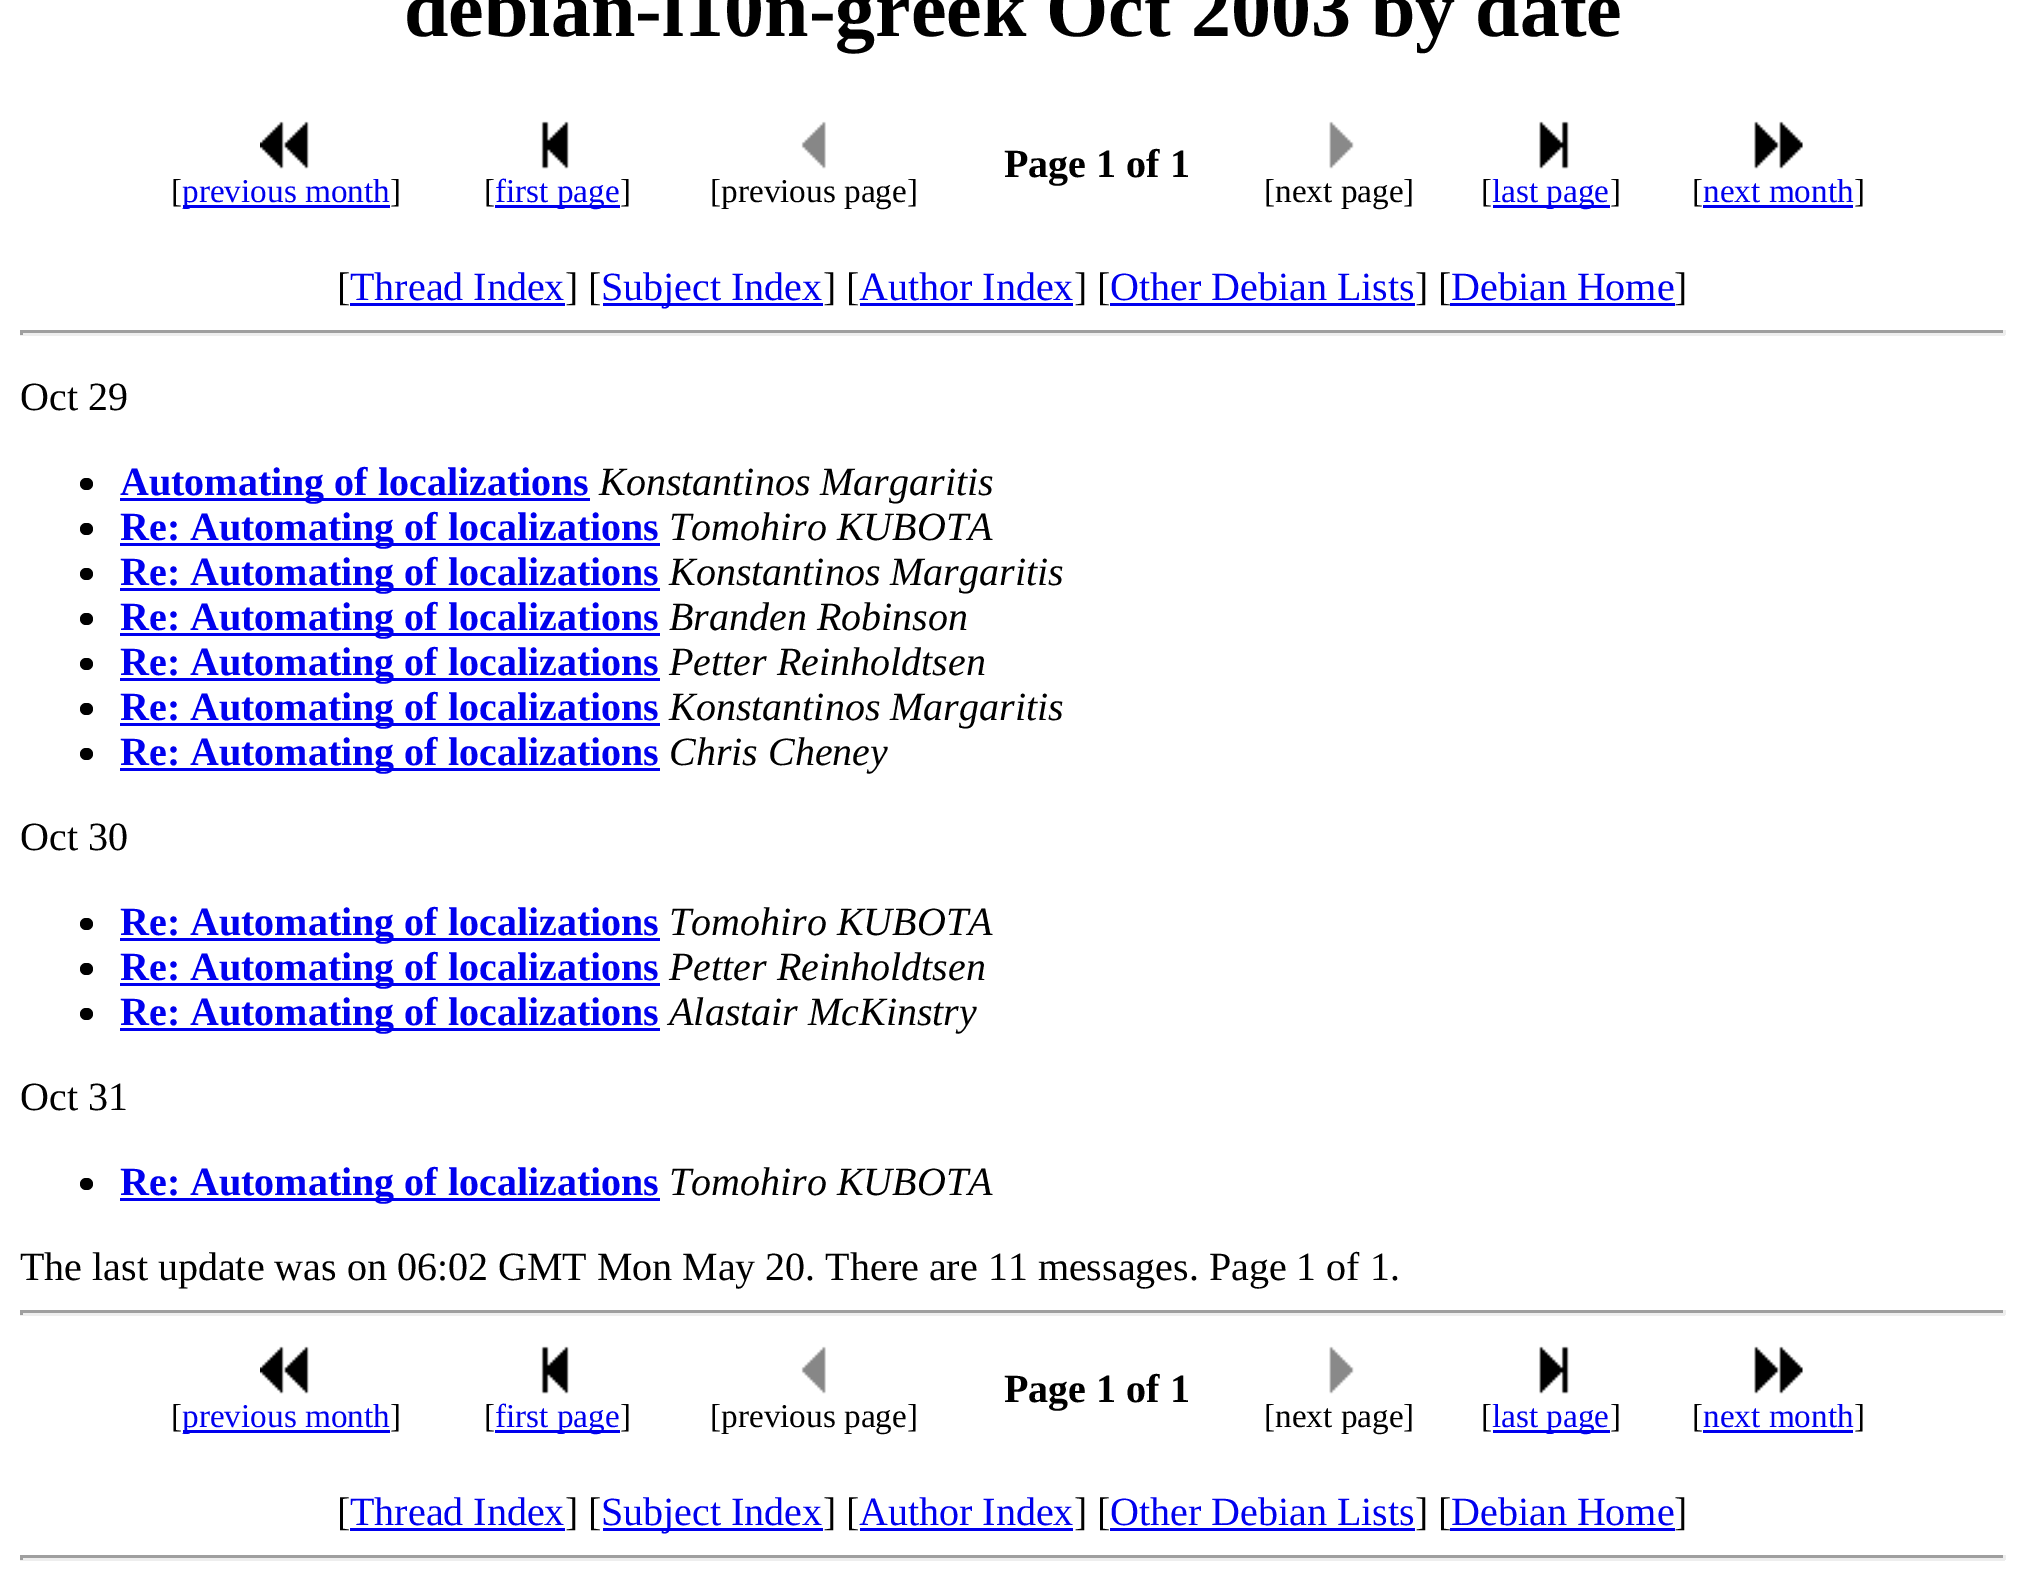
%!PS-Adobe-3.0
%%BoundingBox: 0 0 2024 1594
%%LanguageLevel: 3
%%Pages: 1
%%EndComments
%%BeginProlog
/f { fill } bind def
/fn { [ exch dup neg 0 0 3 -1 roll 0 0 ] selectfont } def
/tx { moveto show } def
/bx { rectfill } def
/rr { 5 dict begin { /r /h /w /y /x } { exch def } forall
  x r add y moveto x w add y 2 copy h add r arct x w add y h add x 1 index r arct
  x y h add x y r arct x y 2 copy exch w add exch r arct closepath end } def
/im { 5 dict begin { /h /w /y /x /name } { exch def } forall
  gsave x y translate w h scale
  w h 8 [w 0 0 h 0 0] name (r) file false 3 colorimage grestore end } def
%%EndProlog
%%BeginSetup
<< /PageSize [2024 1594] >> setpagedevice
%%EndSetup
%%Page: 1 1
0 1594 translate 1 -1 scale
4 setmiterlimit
1 setgray
0 0 2024 1594 bx
/LiberationSerif-Bold 80 fn
0 setgray
(debian-l10n-greek Oct 2003 by date) 404 36 tx
/LiberationSerif-Bold 40 fn
(Page 1 of 1) 1004 177 tx
(image0.raw) 260 121 49 48 im
/LiberationSerif-Regular 33.25 fn
([) 171 202 tx
0 0 0.933 setrgbcolor
183 205 207 3 bx
(previous month) 182 202 tx
0 setgray
(]) 390 202 tx
(image1.raw) 541 121 28 48 im
([) 484 202 tx
0 0 0.933 setrgbcolor
495 205 125 3 bx
(first page) 495 202 tx
0 setgray
(]) 620 202 tx
(image2.raw) 801 121 25 48 im
([previous page]) 710 202 tx
(image3.raw) 1329 121 25 48 im
([next page]) 1264 202 tx
(image4.raw) 1539 121 30 48 im
([) 1481 202 tx
0 0 0.933 setrgbcolor
1493 205 117 3 bx
(last page) 1492 202 tx
0 setgray
(]) 1610 202 tx
(image5.raw) 1754 121 49 48 im
([) 1692 202 tx
0 0 0.933 setrgbcolor
1703 205 150 3 bx
(next month) 1703 202 tx
0 setgray
(]) 1854 202 tx
/LiberationSerif-Regular 40 fn
([) 337 300 tx
0 0 0.933 setrgbcolor
(Thread Index) 350 300 tx
350 303 215 3 bx
0 setgray
(] [) 565 300 tx
0 0 0.933 setrgbcolor
603 303 220 3 bx
(Subject Index) 601 300 tx
0 setgray
(] [) 823 300 tx
0 0 0.933 setrgbcolor
(Author Index) 859 300 tx
860 303 213 3 bx
0 setgray
(] [) 1074 300 tx
0 0 0.933 setrgbcolor
(Other Debian Lists) 1110 300 tx
1110 303 305 3 bx
0 setgray
(] [) 1415 300 tx
0 0 0.933 setrgbcolor
(Debian Home) 1451 300 tx
1450 303 225 3 bx
0 setgray
(]) 1674 300 tx
0.624 setgray
20 330 1985 3 bx
0.933 setgray
2003 330 3 5 bx
20 333 1985 3 bx
0.624 setgray
20 330 3 5 bx
0 setgray
(Oct 29) 20 410 tx
80 478 13 12 6 rr f
0 0 0.933 setrgbcolor
120 498 470 3 bx
/LiberationSerif-Bold 40 fn
(Automating of localizations) 120 495 tx
/LiberationSerif-Italic 40 fn
0 setgray
(Konstantinos Margaritis) 599 495 tx
80 523 13 12 6 rr f
0 0 0.933 setrgbcolor
120 543 540 3 bx
/LiberationSerif-Bold 40 fn
(Re: Automating of localizations) 120 540 tx
/LiberationSerif-Italic 40 fn
0 setgray
(Tomohiro KUBOTA) 669 540 tx
80 568 13 12 6 rr f
0 0 0.933 setrgbcolor
120 588 540 3 bx
/LiberationSerif-Bold 40 fn
(Re: Automating of localizations) 120 585 tx
/LiberationSerif-Italic 40 fn
0 setgray
(Konstantinos Margaritis) 669 585 tx
80 613 13 12 6 rr f
0 0 0.933 setrgbcolor
120 633 540 3 bx
/LiberationSerif-Bold 40 fn
(Re: Automating of localizations) 120 630 tx
/LiberationSerif-Italic 40 fn
0 setgray
(Branden Robinson) 669 630 tx
80 658 13 12 6 rr f
0 0 0.933 setrgbcolor
120 678 540 3 bx
/LiberationSerif-Bold 40 fn
(Re: Automating of localizations) 120 675 tx
/LiberationSerif-Italic 40 fn
0 setgray
(Petter Reinholdtsen) 669 675 tx
80 703 13 12 6 rr f
0 0 0.933 setrgbcolor
120 723 540 3 bx
/LiberationSerif-Bold 40 fn
(Re: Automating of localizations) 120 720 tx
/LiberationSerif-Italic 40 fn
0 setgray
(Konstantinos Margaritis) 669 720 tx
80 748 13 12 6 rr f
0 0 0.933 setrgbcolor
120 768 540 3 bx
/LiberationSerif-Bold 40 fn
(Re: Automating of localizations) 120 765 tx
/LiberationSerif-Italic 40 fn
0 setgray
(Chris Cheney) 669 765 tx
/LiberationSerif-Regular 40 fn
(Oct 30) 20 850 tx
80 918 13 12 6 rr f
0 0 0.933 setrgbcolor
120 938 540 3 bx
/LiberationSerif-Bold 40 fn
(Re: Automating of localizations) 120 935 tx
/LiberationSerif-Italic 40 fn
0 setgray
(Tomohiro KUBOTA) 669 935 tx
80 963 13 12 6 rr f
0 0 0.933 setrgbcolor
120 983 540 3 bx
/LiberationSerif-Bold 40 fn
(Re: Automating of localizations) 120 980 tx
/LiberationSerif-Italic 40 fn
0 setgray
(Petter Reinholdtsen) 669 980 tx
80 1008 13 12 6 rr f
0 0 0.933 setrgbcolor
120 1028 540 3 bx
/LiberationSerif-Bold 40 fn
(Re: Automating of localizations) 120 1025 tx
/LiberationSerif-Italic 40 fn
0 setgray
(Alastair McKinstry) 669 1025 tx
/LiberationSerif-Regular 40 fn
(Oct 31) 20 1110 tx
80 1178 13 12 6 rr f
0 0 0.933 setrgbcolor
120 1198 540 3 bx
/LiberationSerif-Bold 40 fn
(Re: Automating of localizations) 120 1195 tx
/LiberationSerif-Italic 40 fn
0 setgray
(Tomohiro KUBOTA) 669 1195 tx
/LiberationSerif-Regular 40 fn
(The last update was on 06:02 GMT Mon May 20. There are 11 messages. Page 1 of 1.) 20 1280 tx
0.624 setgray
20 1310 1985 3 bx
0.933 setgray
2003 1310 3 5 bx
20 1313 1985 3 bx
0.624 setgray
20 1310 3 5 bx
/LiberationSerif-Bold 40 fn
0 setgray
(Page 1 of 1) 1004 1402 tx
(image0.raw) 260 1346 49 48 im
/LiberationSerif-Regular 33.25 fn
([) 171 1427 tx
0 0 0.933 setrgbcolor
183 1430 207 3 bx
(previous month) 182 1427 tx
0 setgray
(]) 390 1427 tx
(image1.raw) 541 1346 28 48 im
([) 484 1427 tx
0 0 0.933 setrgbcolor
495 1430 125 3 bx
(first page) 495 1427 tx
0 setgray
(]) 620 1427 tx
(image2.raw) 801 1346 25 48 im
([previous page]) 710 1427 tx
(image3.raw) 1329 1346 25 48 im
([next page]) 1264 1427 tx
(image4.raw) 1539 1346 30 48 im
([) 1481 1427 tx
0 0 0.933 setrgbcolor
1493 1430 117 3 bx
(last page) 1492 1427 tx
0 setgray
(]) 1610 1427 tx
(image5.raw) 1754 1346 49 48 im
([) 1692 1427 tx
0 0 0.933 setrgbcolor
1703 1430 150 3 bx
(next month) 1703 1427 tx
0 setgray
(]) 1854 1427 tx
/LiberationSerif-Regular 40 fn
([) 337 1525 tx
0 0 0.933 setrgbcolor
(Thread Index) 350 1525 tx
350 1528 215 3 bx
0 setgray
(] [) 565 1525 tx
0 0 0.933 setrgbcolor
603 1528 220 3 bx
(Subject Index) 601 1525 tx
0 setgray
(] [) 823 1525 tx
0 0 0.933 setrgbcolor
(Author Index) 859 1525 tx
860 1528 213 3 bx
0 setgray
(] [) 1074 1525 tx
0 0 0.933 setrgbcolor
(Other Debian Lists) 1110 1525 tx
1110 1528 305 3 bx
0 setgray
(] [) 1415 1525 tx
0 0 0.933 setrgbcolor
(Debian Home) 1451 1525 tx
1450 1528 225 3 bx
0 setgray
(]) 1674 1525 tx
0.624 setgray
20 1555 1985 3 bx
0.933 setgray
2003 1555 3 5 bx
20 1558 1985 3 bx
0.624 setgray
20 1555 3 5 bx
showpage
%%EOF
